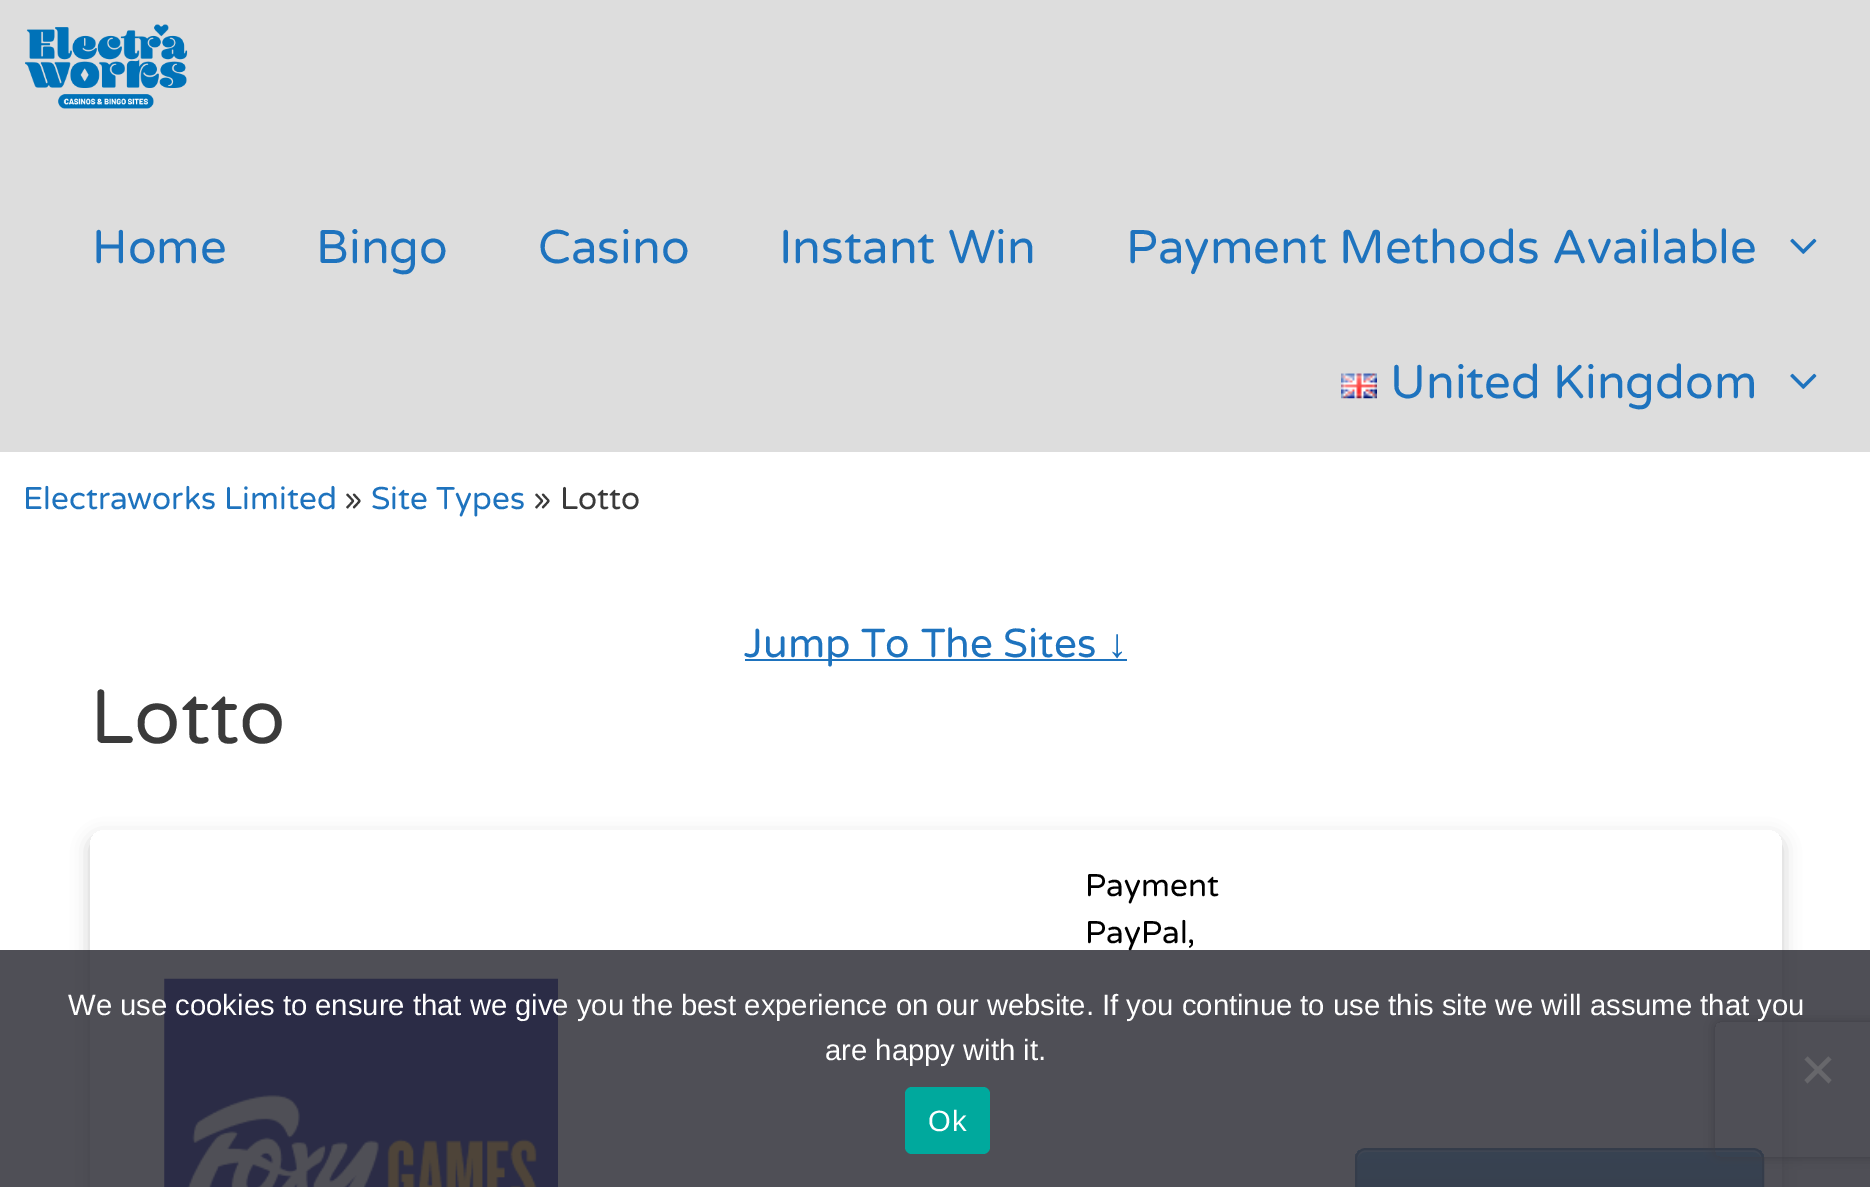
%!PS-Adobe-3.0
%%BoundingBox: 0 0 1870 1187
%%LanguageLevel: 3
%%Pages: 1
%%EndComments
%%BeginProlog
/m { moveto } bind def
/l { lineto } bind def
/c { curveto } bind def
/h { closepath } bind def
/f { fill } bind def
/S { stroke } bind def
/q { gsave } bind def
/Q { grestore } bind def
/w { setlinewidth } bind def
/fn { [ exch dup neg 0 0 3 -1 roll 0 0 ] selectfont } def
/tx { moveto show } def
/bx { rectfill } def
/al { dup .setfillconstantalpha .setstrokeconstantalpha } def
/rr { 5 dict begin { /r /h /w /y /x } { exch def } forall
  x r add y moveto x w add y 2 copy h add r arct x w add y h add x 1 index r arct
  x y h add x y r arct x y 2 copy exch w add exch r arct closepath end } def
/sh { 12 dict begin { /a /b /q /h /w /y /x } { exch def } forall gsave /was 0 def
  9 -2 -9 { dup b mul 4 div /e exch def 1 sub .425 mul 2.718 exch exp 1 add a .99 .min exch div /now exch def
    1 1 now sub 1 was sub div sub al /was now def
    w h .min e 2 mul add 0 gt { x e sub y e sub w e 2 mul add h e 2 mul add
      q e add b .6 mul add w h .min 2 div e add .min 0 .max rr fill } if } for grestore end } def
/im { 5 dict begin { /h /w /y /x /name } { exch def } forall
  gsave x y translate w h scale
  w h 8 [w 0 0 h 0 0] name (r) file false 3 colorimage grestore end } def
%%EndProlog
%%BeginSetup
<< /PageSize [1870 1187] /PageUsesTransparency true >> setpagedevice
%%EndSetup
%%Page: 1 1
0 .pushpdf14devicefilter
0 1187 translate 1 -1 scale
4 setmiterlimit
1 setgray
0 0 1870 1187 bx
0.867 setgray
0 0 1870 452 bx
(image0.raw) 25 24 163 85 im
/VarelaRound-Regular 47.25 fn
0.118 0.451 0.745 setrgbcolor
(Home) 92 263 tx
(Bingo) 316 263 tx
(Casino) 538 263 tx
(Instant Win) 779 263 tx
(Payment Methods Available) 1126 263 tx
(image1.raw) 1790 238 27 16 im
(image2.raw) 1341 373 36 26 im
(United Kingdom) 1390 398 tx
(image1.raw) 1790 373 27 16 im
/VarelaRound-Regular 31.5 fn
(Electraworks Limited) 23 509 tx
0.227 setgray
(») 344 509 tx
0.118 0.451 0.745 setrgbcolor
(Site Types) 371 509 tx
0.227 setgray
(» Lotto) 533 509 tx
0.118 0.451 0.745 setrgbcolor
745 659 382 2 bx
/VarelaRound-Regular 40.5 fn
(Jump To The Sites) 744 657 tx
/LiberationSans-Regular 40.5 fn
(↓) 1107 657 tx
/VarelaRound-Regular 76.5 fn
0.227 setgray
(Lotto) 90 743 tx
q
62 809 m 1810 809 l 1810 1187 l 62 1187 l h 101 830 m 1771 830 l 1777 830 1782 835 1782 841 c 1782 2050 l 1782 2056 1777 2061 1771 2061 c 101 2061 l 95 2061 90 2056 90 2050 c 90 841 l 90 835 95 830 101 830 c h eoclip newpath
0 setgray
90 837 1692 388 11 9 0.2 sh
Q
/VarelaRound-Regular 31.5 fn
0 setgray
(Payment) 1085 896 tx
(PayPal,) 1085 943 tx
(image3.raw) 164 978 394 209 im
q
1355 1148 409 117 11 rr clip newpath
q 1355 1150 m 1764 1150 l 1764 1187 l 1355 1187 l h clip newpath
<< /ShadingType 2 /ColorSpace /DeviceRGB /Coords [1559 1150 1559 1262] /Extend [true true] /Function << /FunctionType 3 /Domain [0 1] /Functions [<< /FunctionType 2 /Domain [0 1] /C0 [0.349 0.639 0.878] /C1 [0.349 0.639 0.878] /N 1 >> << /FunctionType 2 /Domain [0 1] /C0 [0.349 0.639 0.878] /C1 [0.259 0.478 0.659] /N 1 >>] /Bounds [0.01] /Encode [0 1 0 1] >> >> shfill Q
Q
0.545 0.749 0.914 setrgbcolor
1366 1152 m 1753 1152 l 1758 1152 1762 1156 1762 1161 c 1762 1155 1759 1150 1753 1150 c 1364 1150 l 1359 1151 1357 1156 1357 1161 c 1357 1156 1361 1152 1366 1152 c h f
0.259 0.478 0.659 setrgbcolor
2 w
1356 1149 407 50 10 rr S
q
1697 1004 m 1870 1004 l 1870 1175 l 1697 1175 l h 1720 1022 m 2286 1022 l 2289 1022 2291 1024 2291 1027 c 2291 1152 l 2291 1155 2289 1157 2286 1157 c 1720 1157 l 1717 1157 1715 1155 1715 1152 c 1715 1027 l 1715 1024 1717 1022 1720 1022 c h eoclip newpath
0.502 setgray
1715 1022 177 135 5 5.5 1 sh
Q
0.86 al
0.196 0.196 0.227 setrgbcolor
0 950 1870 237 bx
/LiberationSans-Regular 29.25 fn
1 al
1 setgray
(We use cookies to ensure that we give you the best experience on our website. If you continue to use this site we will assume that you) 68 1015 tx
(are happy with it.) 825 1060 tx
0.404 0.404 0.42 setrgbcolor
1828.5 1056.5 m 1831.5 1059.5 l 1807.5 1083.5 l 1804.5 1080 l h f
1804.5 1059.5 m 1807.5 1056.5 l 1831.5 1080 l 1828.5 1083.5 l h f
0 0.663 0.616 setrgbcolor
905 1087 85 67 7 rr f
1 setgray
928 1131 m 1 0 (Ok) ashow
.poppdf14devicefilter showpage
%%EOF
